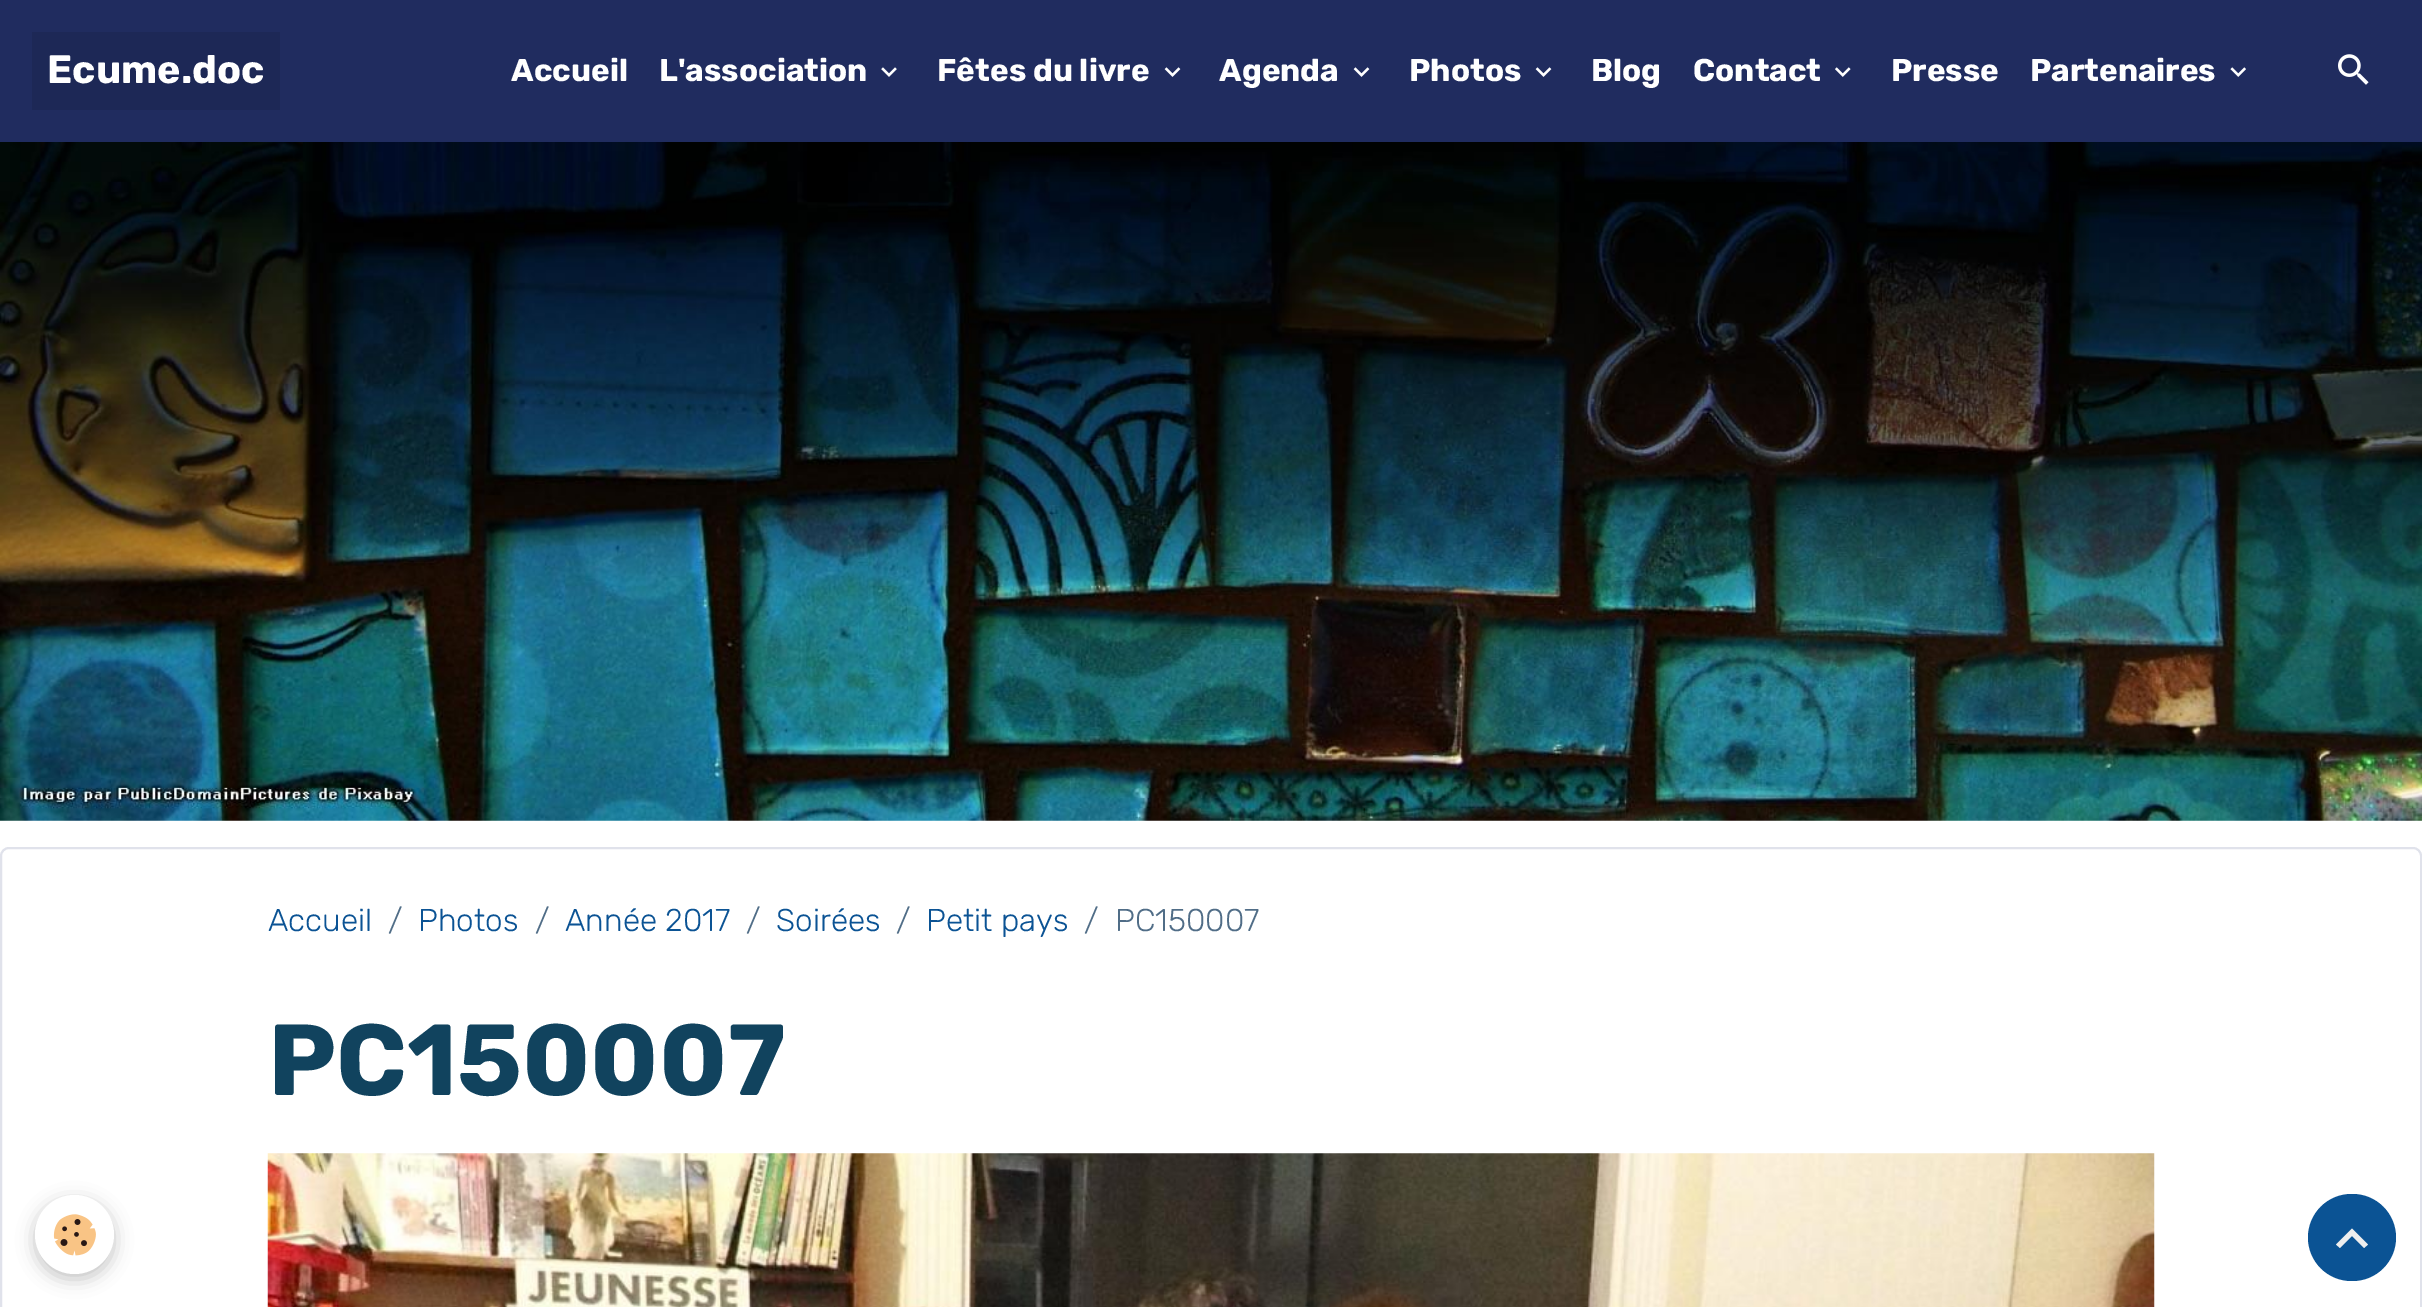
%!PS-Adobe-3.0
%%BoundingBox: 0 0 2422 1307
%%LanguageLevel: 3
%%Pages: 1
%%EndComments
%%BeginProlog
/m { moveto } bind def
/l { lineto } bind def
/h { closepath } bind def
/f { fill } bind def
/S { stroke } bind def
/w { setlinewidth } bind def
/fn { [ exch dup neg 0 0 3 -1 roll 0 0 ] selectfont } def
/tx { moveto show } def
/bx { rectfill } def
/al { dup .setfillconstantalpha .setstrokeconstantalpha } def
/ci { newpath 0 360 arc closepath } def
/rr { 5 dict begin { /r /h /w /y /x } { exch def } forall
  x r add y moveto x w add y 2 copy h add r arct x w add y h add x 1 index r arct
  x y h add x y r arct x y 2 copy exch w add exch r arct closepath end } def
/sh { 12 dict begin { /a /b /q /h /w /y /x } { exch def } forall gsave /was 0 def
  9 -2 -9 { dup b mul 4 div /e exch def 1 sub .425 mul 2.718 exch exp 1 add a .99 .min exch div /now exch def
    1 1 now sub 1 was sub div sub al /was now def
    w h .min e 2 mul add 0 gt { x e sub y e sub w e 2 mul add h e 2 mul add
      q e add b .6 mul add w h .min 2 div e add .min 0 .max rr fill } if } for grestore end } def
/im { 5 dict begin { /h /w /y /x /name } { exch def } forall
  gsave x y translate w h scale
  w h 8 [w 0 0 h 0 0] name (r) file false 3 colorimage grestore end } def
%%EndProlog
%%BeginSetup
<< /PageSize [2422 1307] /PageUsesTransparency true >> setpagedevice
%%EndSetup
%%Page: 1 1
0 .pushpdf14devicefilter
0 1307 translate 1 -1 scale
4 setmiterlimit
1 setgray
0 0 2422 1307 bx
0.125 0.173 0.373 setrgbcolor
0 0 2422 142 bx
0.114 0.157 0.337 setrgbcolor
32 32 248 78 bx
/Rubik-Bold 39.5 fn
1 setgray
(Ecume.doc) 47 83 tx
/Rubik-Bold 31.5 fn
(Accueil) 511 81 tx
(L'association) 659 81 tx
(image0.raw) 881 67 16 10 im
(Fêtes du livre) 937 81 tx
(image1.raw) 1164 67 17 10 im
(Agenda) 1219 81 tx
(image1.raw) 1353 67 17 10 im
(Photos) 1409 81 tx
(image1.raw) 1535 67 17 10 im
(Blog) 1591 81 tx
(Contact) 1693 81 tx
(image2.raw) 1835 67 16 10 im
(Presse) 1891 81 tx
(Partenaires) 2030 81 tx
(image3.raw) 2230 67 16 10 im
(image4.raw) 2338 54 31 31 im
(image5.raw) 0 142 2422 679 im
0.878 0.886 0.922 setrgbcolor
2 w
1 848 2420 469 8 rr S
/Rubik-Light 31.5 fn
0.043 0.325 0.58 setrgbcolor
(Accueil) 268 931 tx
0.314 0.427 0.529 setrgbcolor
(/) 388 931 tx
0.043 0.325 0.58 setrgbcolor
(Photos) 418 931 tx
0.314 0.427 0.529 setrgbcolor
(/) 535 931 tx
0.043 0.325 0.58 setrgbcolor
(Année 2017) 565 931 tx
0.314 0.427 0.529 setrgbcolor
(/) 746 931 tx
0.043 0.325 0.58 setrgbcolor
(Soirées) 776 931 tx
0.314 0.427 0.529 setrgbcolor
(/) 896 931 tx
0.043 0.325 0.58 setrgbcolor
(Petit pays) 926 931 tx
0.314 0.427 0.529 setrgbcolor
(/) 1084 931 tx
(PC150007) 1115 931 tx
/Rubik-Bold 100.75 fn
0.067 0.263 0.369 setrgbcolor
(PC150007) 268 1095 tx
(image6.raw) 267 1153 1888 154 im
0 setgray
35 1201 79 78 39 9 0.24 sh
1 setgray
74.5 1234.5 39.5 ci f
(image7.raw) 53 1214 43 42 im
0.043 0.325 0.58 setrgbcolor
2308 1194 88 87 43.5 rr f
0.933 setgray
2352 1228.5 m 2368 1244.5 l 2364 1248 l 2352 1236 l 2340 1248 l 2336 1244.5 l h f
.poppdf14devicefilter showpage
%%EOF
